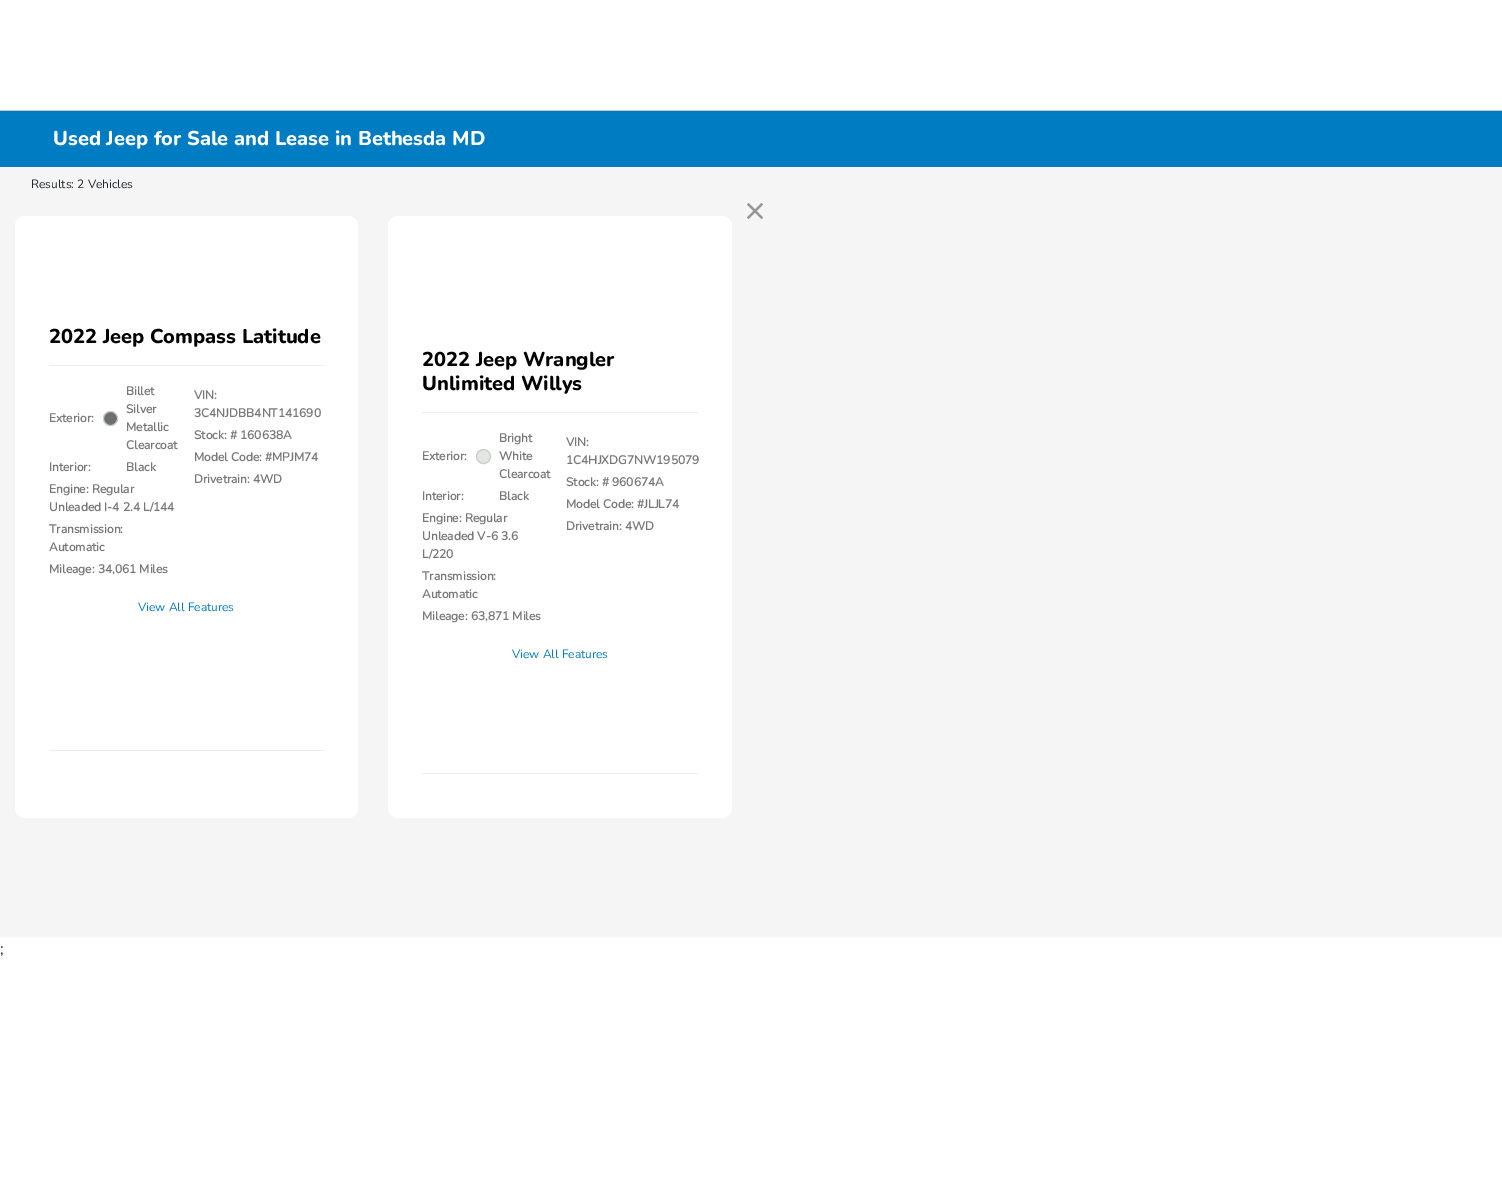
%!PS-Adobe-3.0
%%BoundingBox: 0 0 1502 1179
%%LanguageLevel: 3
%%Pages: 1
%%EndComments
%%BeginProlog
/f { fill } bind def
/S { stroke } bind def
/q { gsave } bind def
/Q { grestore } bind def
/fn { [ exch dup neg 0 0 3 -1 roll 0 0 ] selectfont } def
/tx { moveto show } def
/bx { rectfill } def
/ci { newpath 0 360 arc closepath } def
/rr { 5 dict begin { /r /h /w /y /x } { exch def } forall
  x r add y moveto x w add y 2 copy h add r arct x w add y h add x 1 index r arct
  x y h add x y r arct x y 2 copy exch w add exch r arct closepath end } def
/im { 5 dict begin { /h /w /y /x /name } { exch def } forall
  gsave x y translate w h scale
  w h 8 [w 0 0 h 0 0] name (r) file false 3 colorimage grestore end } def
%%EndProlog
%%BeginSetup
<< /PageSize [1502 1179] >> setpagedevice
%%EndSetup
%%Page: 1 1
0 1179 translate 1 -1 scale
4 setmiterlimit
1 setgray
0 0 1502 1179 bx
0.961 setgray
0 167 1502 770 bx
0 0.486 0.765 setrgbcolor
0 111 1502 56 bx
0.776 setgray
0 110 1502 1 bx
/Nunito-ExtraBold 20 fn
1 setgray
(Used Jeep for Sale and Lease in Bethesda MD) 53 145 tx
/Nunito-Regular 12 fn
0.129 0.145 0.161 setrgbcolor
(Results: 2 Vehicles) 31 188 tx
(image0.raw) 747 203 16 16 im
1 setgray
15 216 343 602 10 rr f
/Nunito-ExtraBold 20 fn
0 setgray
(2022 Jeep Compass Latitude) 49 343 tx
0.929 setgray
49 365 275 1 bx
/Nunito-Bold 12 fn
0.475 0.471 0.471 setrgbcolor
(Exterior:) 49 422 tx
0.431 0.435 0.443 setrgbcolor
110.5 418.5 7 ci q f Q
0.8 setgray
S
0.475 0.471 0.471 setrgbcolor
(Billet) 126 395 tx
(Silver) 126 413 tx
(Metallic) 126 431 tx
(Clearcoat) 126 449 tx
(Interior:) 49 471 tx
(Black) 126 471 tx
(Engine: Regular) 49 493 tx
(Unleaded I-4 2.4 L/144) 49 511 tx
(Transmission:) 49 533 tx
(Automatic) 49 551 tx
(Mileage: 34,061 Miles) 49 573 tx
(VIN:) 194 399 tx
(3C4NJDBB4NT141690) 194 417 tx
(Stock: # 160638A) 194 439 tx
(Model Code: #MPJM74) 194 461 tx
(Drivetrain: 4WD) 194 483 tx
/Nunito-Regular 12 fn
0 0.486 0.765 setrgbcolor
(View All Features) 138 611 tx
0.929 setgray
49 750 275 1 bx
1 setgray
388 216 344 602 10 rr f
/Nunito-ExtraBold 20 fn
0 setgray
(2022 Jeep Wrangler) 422 366 tx
(Unlimited Willys) 422 390 tx
0.929 setgray
422 412 276 1 bx
/Nunito-Bold 12 fn
0.475 0.471 0.471 setrgbcolor
(Exterior:) 422 460 tx
0.89 0.906 0.894 setrgbcolor
483.5 456.5 7 ci q f Q
0.8 setgray
S
0.475 0.471 0.471 setrgbcolor
(Bright) 499 442 tx
(White) 499 460 tx
(Clearcoat) 499 478 tx
(Interior:) 422 500 tx
(Black) 499 500 tx
(Engine: Regular) 422 522 tx
(Unleaded V-6 3.6) 422 540 tx
(L/220) 422 558 tx
(Transmission:) 422 580 tx
(Automatic) 422 598 tx
(Mileage: 63,871 Miles) 422 620 tx
(VIN:) 566 446 tx
(1C4HJXDG7NW195079) 566 464 tx
(Stock: # 960674A) 566 486 tx
(Model Code: #JLJL74) 566 508 tx
(Drivetrain: 4WD) 566 530 tx
/Nunito-Regular 12 fn
0 0.486 0.765 setrgbcolor
(View All Features) 512 658 tx
0.929 setgray
422 773 276 1 bx
/Nunito-Regular 16 fn
0.129 0.145 0.161 setrgbcolor
(;) 0 954 tx
showpage
%%EOF
